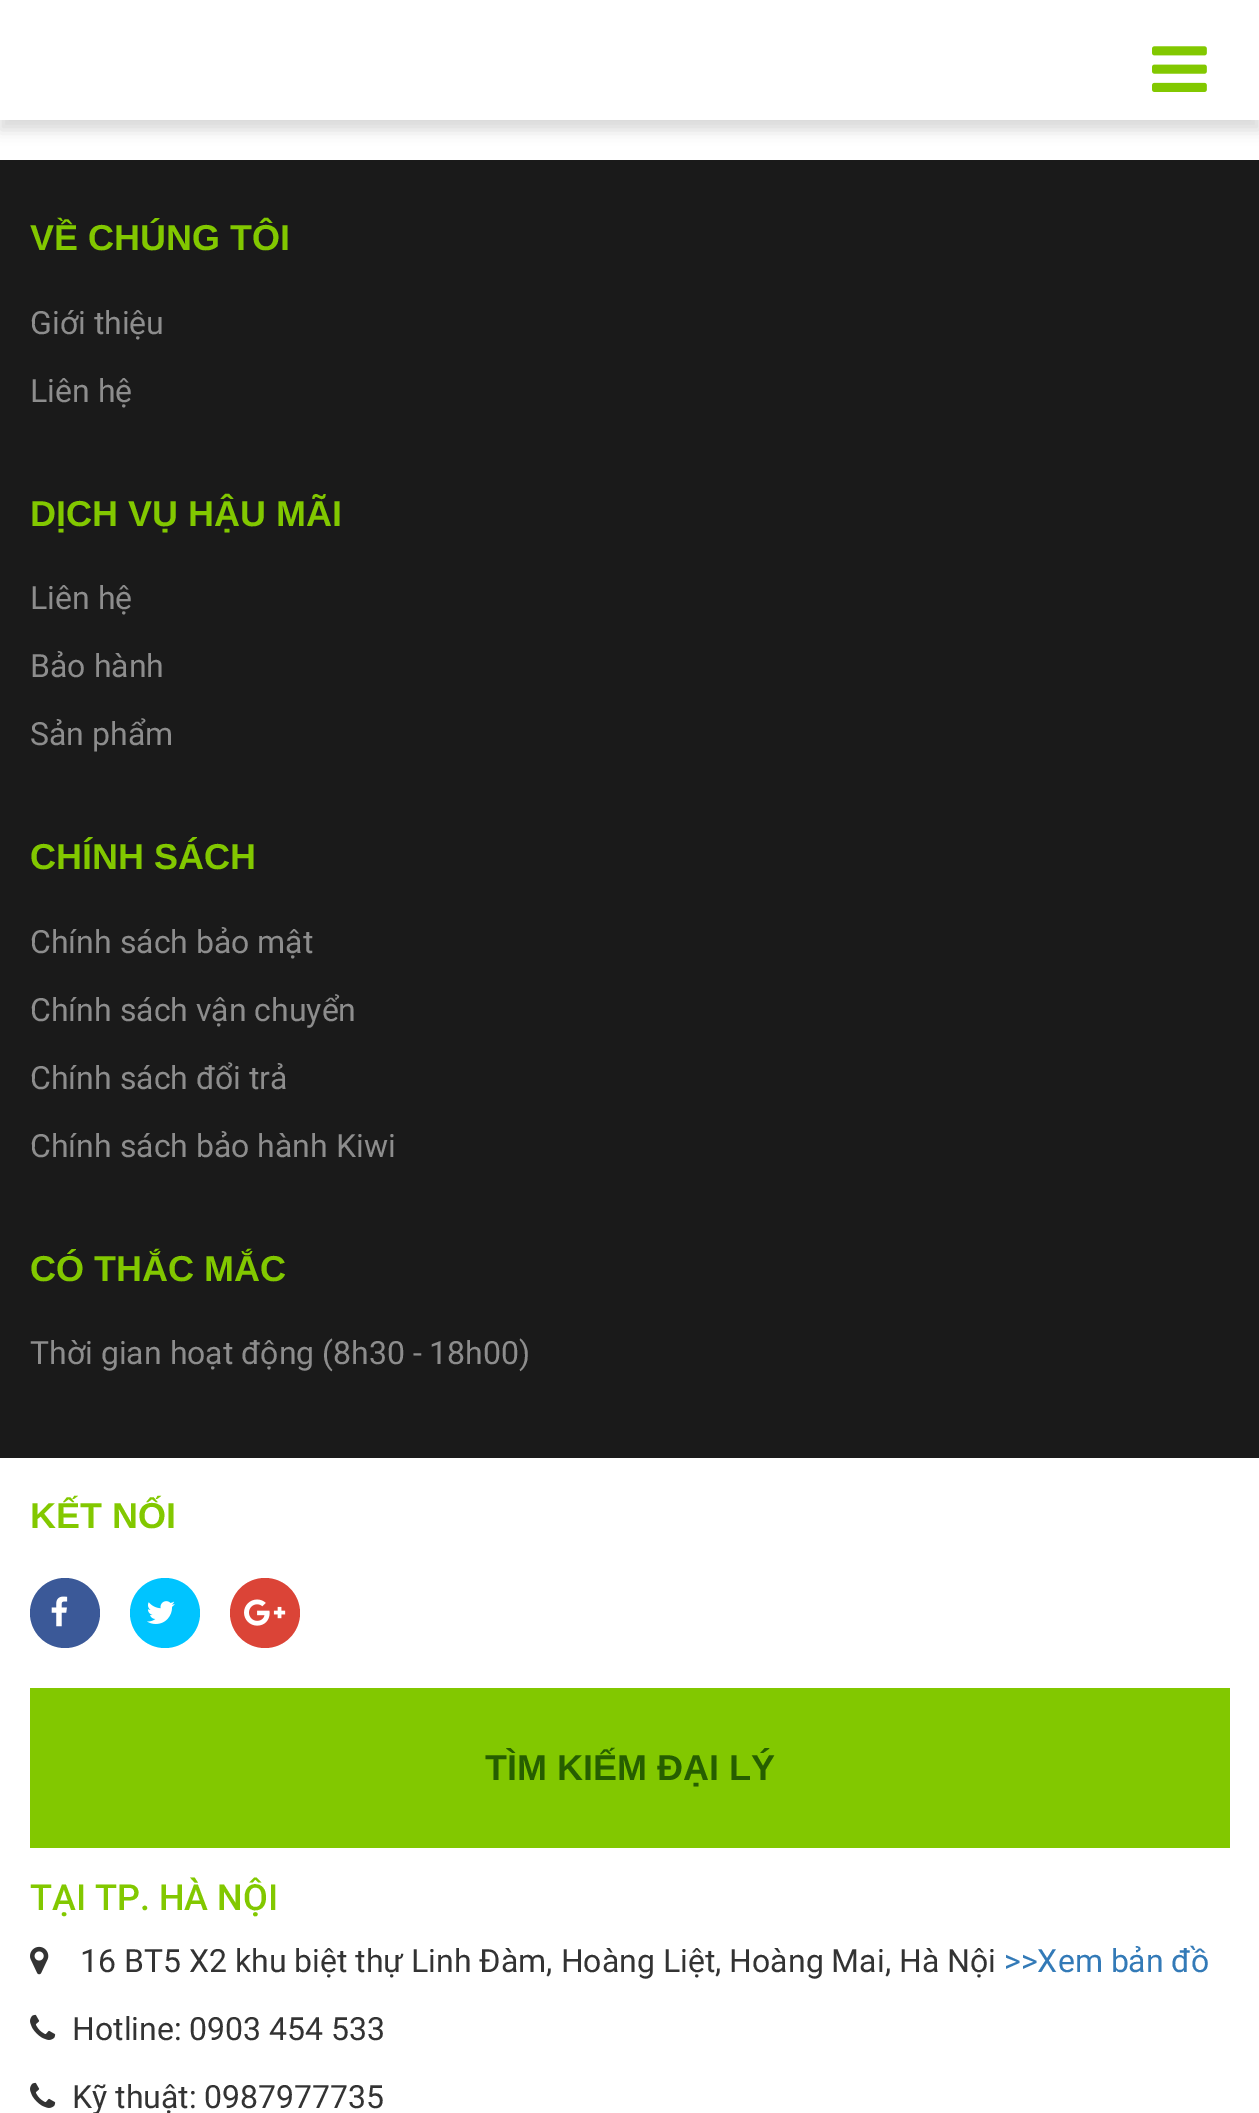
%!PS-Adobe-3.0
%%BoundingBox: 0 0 1259 2113
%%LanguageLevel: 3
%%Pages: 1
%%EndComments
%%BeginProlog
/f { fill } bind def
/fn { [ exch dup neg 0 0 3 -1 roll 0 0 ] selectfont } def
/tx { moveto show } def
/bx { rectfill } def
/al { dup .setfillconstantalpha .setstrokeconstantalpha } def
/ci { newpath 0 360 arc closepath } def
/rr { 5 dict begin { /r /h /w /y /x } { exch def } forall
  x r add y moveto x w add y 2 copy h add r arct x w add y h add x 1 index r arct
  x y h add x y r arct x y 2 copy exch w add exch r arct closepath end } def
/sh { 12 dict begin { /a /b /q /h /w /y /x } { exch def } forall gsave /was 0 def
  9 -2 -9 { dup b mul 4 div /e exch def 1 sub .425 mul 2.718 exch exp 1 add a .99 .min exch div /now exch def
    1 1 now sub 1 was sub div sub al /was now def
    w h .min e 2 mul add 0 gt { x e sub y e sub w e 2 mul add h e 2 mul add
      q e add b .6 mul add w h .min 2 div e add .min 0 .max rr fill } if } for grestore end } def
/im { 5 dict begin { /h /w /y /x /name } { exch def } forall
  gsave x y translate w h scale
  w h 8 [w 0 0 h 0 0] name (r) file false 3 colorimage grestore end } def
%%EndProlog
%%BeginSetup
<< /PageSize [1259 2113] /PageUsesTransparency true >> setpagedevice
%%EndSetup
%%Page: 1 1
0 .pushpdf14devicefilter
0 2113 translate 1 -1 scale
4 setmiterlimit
1 setgray
0 0 1259 2113 bx
0 setgray
0 10 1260 120 0 7 0.15 sh
1 setgray
0 0 1259 120 bx
(image0.raw) 1152 46 55 46 im
0.102 setgray
0 160 1259 1298 bx
/LiberationSans-Bold 36 fn
0.51 0.784 0 setrgbcolor
(VỀ CHÚNG TÔI) 30 250 tx
/Roboto-Regular 32 fn
0.553 setgray
(Giới thiệu) 30 334 tx
(Liên hệ) 30 402 tx
/LiberationSans-Bold 36 fn
0.51 0.784 0 setrgbcolor
(DỊCH VỤ HẬU MÃI) 30 526 tx
/Roboto-Regular 32 fn
0.553 setgray
(Liên hệ) 30 609 tx
(Bảo hành) 30 677 tx
(Sản phẩm) 30 745 tx
/LiberationSans-Bold 36 fn
0.51 0.784 0 setrgbcolor
(CHÍNH SÁCH) 30 869 tx
/Roboto-Regular 32 fn
0.553 setgray
(Chính sách bảo mật) 30 953 tx
(Chính sách vận chuyển) 30 1021 tx
(Chính sách đổi trả) 30 1089 tx
(Chính sách bảo hành Kiwi) 30 1157 tx
/LiberationSans-Bold 36 fn
0.51 0.784 0 setrgbcolor
(CÓ THẮC MẮC) 30 1281 tx
/Roboto-Regular 32 fn
0.553 setgray
(Thời gian hoạt động \(8h30 - 18h00\)) 30 1364 tx
/LiberationSans-Bold 36 fn
0.51 0.784 0 setrgbcolor
(KẾT NỐI) 30 1528 tx
0.231 0.349 0.596 setrgbcolor
65 1613 35 ci f
(image1.raw) 51 1596 17 31 im
0 0.769 1 setrgbcolor
165 1613 35 ci f
(image2.raw) 147 1601 28 23 im
0.859 0.267 0.216 setrgbcolor
265 1613 35 ci f
(image3.raw) 244 1599 42 27 im
0.51 0.784 0 setrgbcolor
30 1688 1200 160 bx
0.149 0.369 0 setrgbcolor
(TÌM KIẾM ĐẠI LÝ) 485 1780 tx
/Roboto-Medium 36 fn
0.51 0.784 0 setrgbcolor
(TẠI TP. HÀ NỘI) 30 1910 tx
(image4.raw) 30 1946 19 29 im
/Roboto-Regular 32 fn
0.2 setgray
(16 BT5 X2 khu biệt thự Linh Đàm, Hoàng Liệt, Hoàng Mai, Hà Nội) 80 1972 tx
0.2 0.478 0.718 setrgbcolor
(>>Xem bản đồ) 1004 1972 tx
(image5.raw) 30 2014 26 26 im
0.2 setgray
(Hotline: 0903 454 533) 72 2040 tx
(image5.raw) 30 2082 26 26 im
(Kỹ thuật: 0987977735) 72 2108 tx
.poppdf14devicefilter showpage
%%EOF
